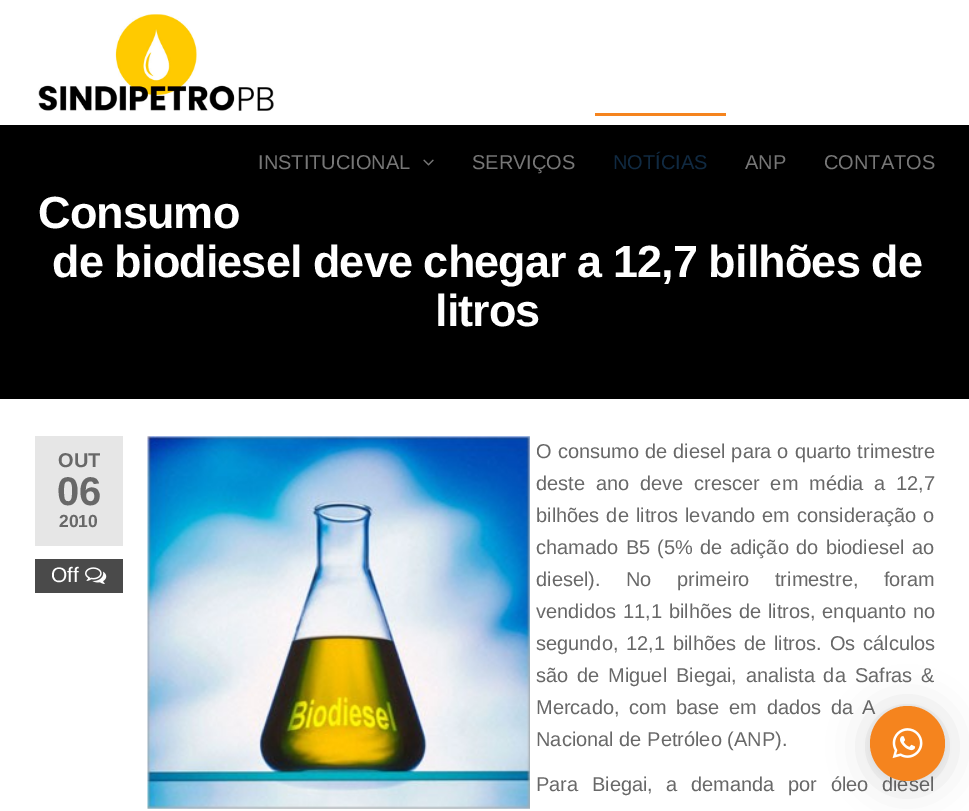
%!PS-Adobe-3.0
%%BoundingBox: 0 0 969 811
%%LanguageLevel: 3
%%Pages: 1
%%EndComments
%%BeginProlog
/m { moveto } bind def
/f { fill } bind def
/fn { [ exch dup neg 0 0 3 -1 roll 0 0 ] selectfont } def
/tx { moveto show } def
/bx { rectfill } def
/al { dup .setfillconstantalpha .setstrokeconstantalpha } def
/ci { newpath 0 360 arc closepath } def
/rr { 5 dict begin { /r /h /w /y /x } { exch def } forall
  x r add y moveto x w add y 2 copy h add r arct x w add y h add x 1 index r arct
  x y h add x y r arct x y 2 copy exch w add exch r arct closepath end } def
/sh { 12 dict begin { /a /b /q /h /w /y /x } { exch def } forall gsave /was 0 def
  9 -2 -9 { dup b mul 4 div /e exch def 1 sub .425 mul 2.718 exch exp 1 add a .99 .min exch div /now exch def
    1 1 now sub 1 was sub div sub al /was now def
    w h .min e 2 mul add 0 gt { x e sub y e sub w e 2 mul add h e 2 mul add
      q e add b .6 mul add w h .min 2 div e add .min 0 .max rr fill } if } for grestore end } def
/im { 5 dict begin { /h /w /y /x /name } { exch def } forall
  gsave x y translate w h scale
  w h 8 [w 0 0 h 0 0] name (r) file false 3 colorimage grestore end } def
%%EndProlog
%%BeginSetup
<< /PageSize [969 811] /PageUsesTransparency true >> setpagedevice
%%EndSetup
%%Page: 1 1
0 .pushpdf14devicefilter
0 811 translate 1 -1 scale
4 setmiterlimit
1 setgray
0 0 969 811 bx
(image0.raw) 38 14 236 97 im
0 setgray
0 125 969 274 bx
/LiberationSans-Regular 20 fn
0.467 setgray
(INSTITUCIONAL) 258 169 tx
(image1.raw) 423 159 11 7 im
(SERVIÇOS) 472 169 tx
0.961 0.518 0.118 setrgbcolor
595 113 131 3 bx
0.063 0.165 0.259 setrgbcolor
(NOTÍCIAS) 613 169 tx
0.467 setgray
(ANP) 745 169 tx
(CONTATOS) 824 169 tx
/LiberationSans-Bold 45 fn
1 setgray
38 228 m -0.9 0 (Consumo) ashow
52 277 m -0.9 0 (de biodiesel deve chegar a 12,7 bilhões de) ashow
435 326 m -0.9 0 (litros) ashow
0.902 setgray
35 436 88 110 bx
/LiberationSans-Bold 20 fn
0.408 setgray
(OUT) 58 467 tx
/LiberationSans-Bold 40 fn
(06) 57 505 tx
/LiberationSans-Bold 17.5 fn
(2010) 59 527 tx
0.29 setgray
35 559 88 34 bx
/LiberationSans-Regular 21 fn
1 setgray
(Off) 51 582 tx
(image2.raw) 85 567 22 17 im
(image3.raw) 147 436 383 373 im
/LiberationSans-Regular 20 fn
0.408 setgray
536 458 m 0.5 0 32 (O consumo de diesel para o quarto trimestre) widthshow
536 490 m 5.25 0 32 (deste ano deve crescer em média a 12,7) widthshow
536 522 m 1.5 0 32 (bilhões de litros levando em consideração o) widthshow
536 554 m 1.75 0 32 (chamado B5 \(5% de adição do biodiesel ao) widthshow
536 586 m 20 0 32 (diesel\). No primeiro trimestre, foram) widthshow
536 618 m 1.25 0 32 (vendidos 11,1 bilhões de litros, enquanto no) widthshow
536 650 m 2.25 0 32 (segundo, 12,1 bilhões de litros. Os cálculos) widthshow
536 682 m 3.25 0 32 (são de Miguel Biegai, analista da Safras &) widthshow
536 714 m 4 0 32 (Mercado, com base em dados da A) widthshow
(Nacional de Petróleo \(ANP\).) 536 746 tx
536 791 m 8 0 32 (Para Biegai, a demanda por óleo diesel) widthshow
0 setgray
870 709 75 75 37.5 20 0.16 sh
870 708 75 75 37.5 4 0.06 sh
0.961 0.518 0.118 setrgbcolor
907.5 743.5 37.5 ci f
(image4.raw) 892 728 31 31 im
.poppdf14devicefilter showpage
%%EOF
